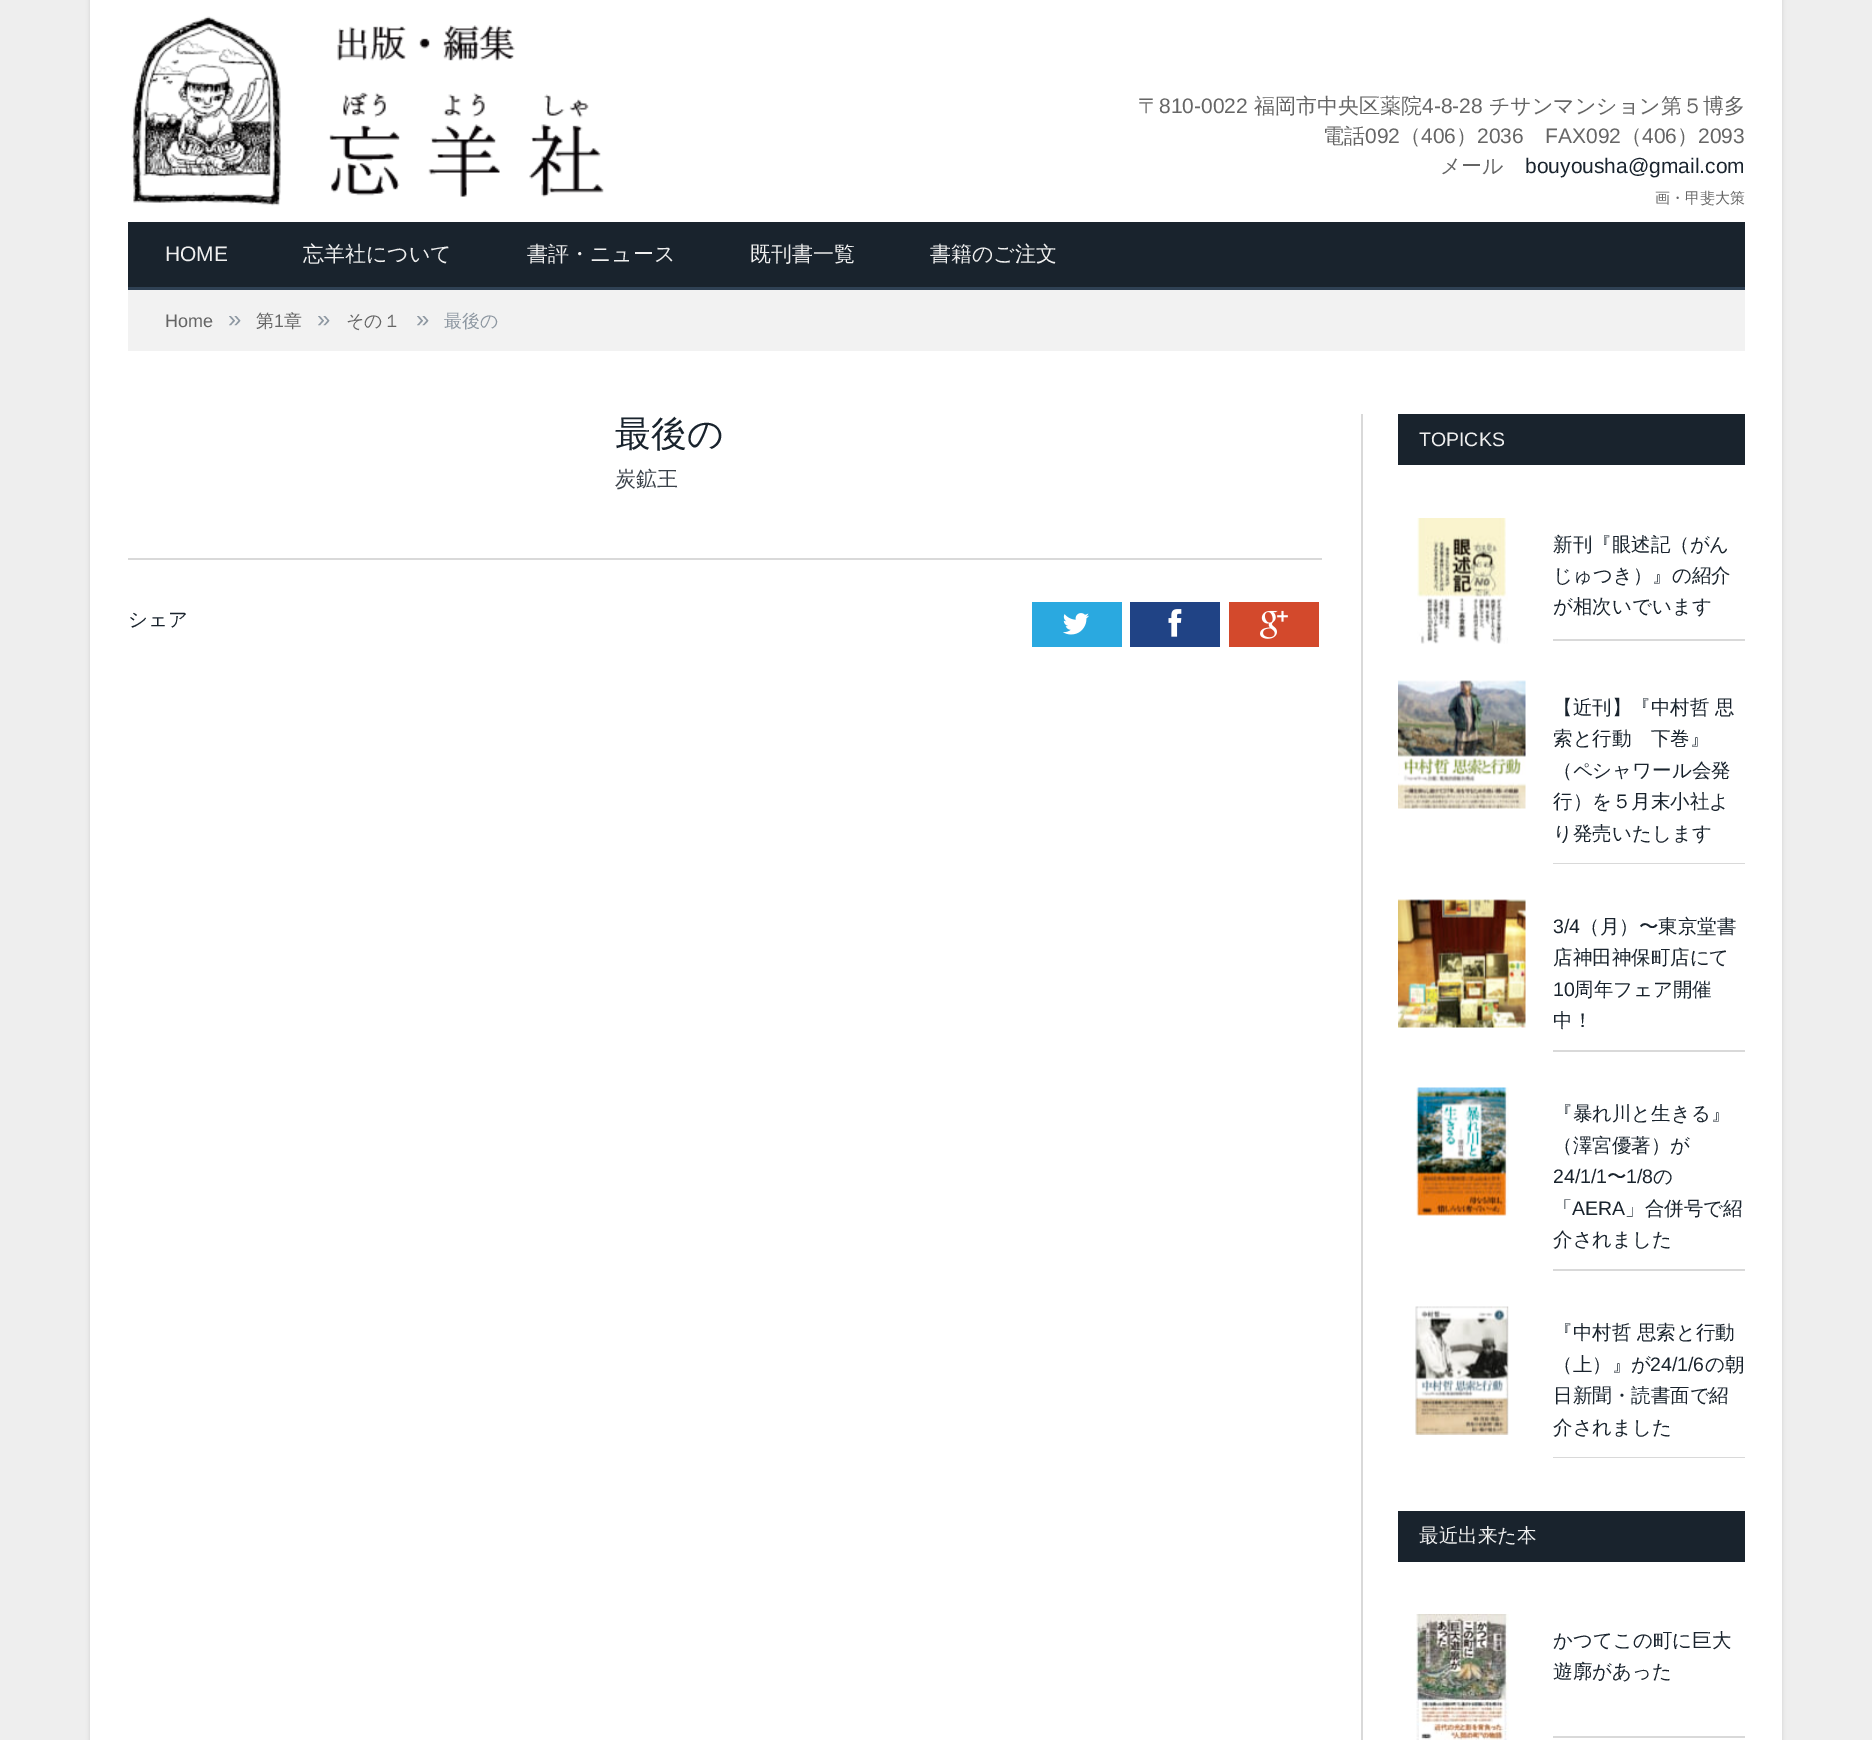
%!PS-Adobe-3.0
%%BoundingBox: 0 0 1872 1740
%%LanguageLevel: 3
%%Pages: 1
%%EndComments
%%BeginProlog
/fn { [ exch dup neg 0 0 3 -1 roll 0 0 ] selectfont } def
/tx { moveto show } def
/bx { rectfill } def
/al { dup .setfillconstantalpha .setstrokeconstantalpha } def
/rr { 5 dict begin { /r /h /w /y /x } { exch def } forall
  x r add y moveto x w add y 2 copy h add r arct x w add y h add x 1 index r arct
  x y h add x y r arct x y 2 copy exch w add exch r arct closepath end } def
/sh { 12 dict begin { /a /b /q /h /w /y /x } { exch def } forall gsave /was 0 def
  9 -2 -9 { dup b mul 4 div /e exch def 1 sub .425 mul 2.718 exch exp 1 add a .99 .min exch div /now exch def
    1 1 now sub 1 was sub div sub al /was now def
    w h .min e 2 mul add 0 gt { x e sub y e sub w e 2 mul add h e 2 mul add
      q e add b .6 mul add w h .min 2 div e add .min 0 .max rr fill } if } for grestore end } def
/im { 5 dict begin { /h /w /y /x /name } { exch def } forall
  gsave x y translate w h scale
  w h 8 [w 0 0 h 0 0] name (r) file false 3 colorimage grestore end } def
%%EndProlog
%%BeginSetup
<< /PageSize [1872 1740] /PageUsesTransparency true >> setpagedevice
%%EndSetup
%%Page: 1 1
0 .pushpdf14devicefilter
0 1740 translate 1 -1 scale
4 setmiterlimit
0.933 setgray
0 0 1872 1740 bx
0 setgray
90 0 1692 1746 0 2 0.12 sh
1 setgray
90 0 1692 1740 bx
(image0.raw) 131 16 473 190 im
/WenQuanYiZenHei-Medium 21 fn
0.396 setgray
(〒) 1138 113 tx
/LiberationSans-Regular 21 fn
(810-0022) 1159 113 tx
/WenQuanYiZenHei-Medium 21 fn
(福岡市中央区薬院) 1254 113 tx
/LiberationSans-Regular 21 fn
(4-8-28) 1422 113 tx
/WenQuanYiZenHei-Medium 21 fn
(チサンマンション第５博多) 1489 113 tx
(電話) 1323 143 tx
/LiberationSans-Regular 21 fn
(092) 1365 143 tx
/WenQuanYiZenHei-Medium 21 fn
(（) 1400 143 tx
/LiberationSans-Regular 21 fn
(406) 1421 143 tx
/WenQuanYiZenHei-Medium 21 fn
(）) 1456 143 tx
/LiberationSans-Regular 21 fn
(2036) 1477 143 tx
(FAX092) 1545 143 tx
/WenQuanYiZenHei-Medium 21 fn
(（) 1621 143 tx
/LiberationSans-Regular 21 fn
(406) 1642 143 tx
/WenQuanYiZenHei-Medium 21 fn
(）) 1677 143 tx
/LiberationSans-Regular 21 fn
(2093) 1698 143 tx
/WenQuanYiZenHei-Medium 21 fn
(メール) 1440 173 tx
/LiberationSans-Regular 21 fn
0.098 0.137 0.176 setrgbcolor
(bouyousha@gmail.com) 1525 173 tx
/WenQuanYiZenHei-Medium 15 fn
0.396 setgray
(画・甲斐大策) 1655 203 tx
0.098 0.137 0.176 setrgbcolor
128 222 1617 65 bx
0.184 0.255 0.329 setrgbcolor
128 287 1617 3 bx
/LiberationSans-Regular 21 fn
0.937 setgray
(HOME) 165 261 tx
/WenQuanYiZenHei-Medium 21 fn
(忘羊社について) 303 261 tx
(書評・ニュース) 527 261 tx
(既刊書一覧) 750 261 tx
(書籍のご注文) 930 261 tx
0.949 setgray
128 290 1617 61 bx
/LiberationSans-Regular 18 fn
0.396 setgray
(Home) 165 327 tx
/LiberationSans-Regular 24 fn
0.553 0.592 0.631 setrgbcolor
(») 228 327 tx
/WenQuanYiZenHei-Medium 18 fn
0.396 setgray
(第) 256 327 tx
/LiberationSans-Regular 18 fn
(1) 274 327 tx
/WenQuanYiZenHei-Medium 18 fn
(章) 284 327 tx
/LiberationSans-Regular 24 fn
0.553 0.592 0.631 setrgbcolor
(») 317 327 tx
/WenQuanYiZenHei-Medium 18 fn
0.396 setgray
(その１) 346 327 tx
/LiberationSans-Regular 24 fn
0.553 0.592 0.631 setrgbcolor
(») 416 327 tx
/WenQuanYiZenHei-Medium 18 fn
(最後の) 444 327 tx
/WenQuanYiZenHei-Medium 36 fn
0.098 0.137 0.176 setrgbcolor
(最後の) 615 446 tx
/WenQuanYiZenHei-Medium 21 fn
0.227 0.255 0.286 setrgbcolor
(炭鉱王) 615 486 tx
0.851 setgray
128 558 1194 2 bx
/WenQuanYiZenHei-Medium 19.5 fn
0.098 0.137 0.176 setrgbcolor
(シェア) 128 626 tx
0.165 0.663 0.878 setrgbcolor
1032 602 90 45 bx
(image1.raw) 1063 613 26 22 im
0.125 0.263 0.522 setrgbcolor
1130 602 90 45 bx
(image2.raw) 1168 609 14 28 im
0.827 0.286 0.173 setrgbcolor
1229 602 90 45 bx
(image3.raw) 1260 610 28 29 im
0.851 setgray
1361 414 2 1326 bx
0.098 0.137 0.176 setrgbcolor
1398 414 347 51 bx
/LiberationSans-Regular 19.5 fn
0.937 setgray
(TOPICKS) 1419 446 tx
(image4.raw) 1417 518 91 126 im
0.851 setgray
1553 639 192 2 bx
/WenQuanYiZenHei-Medium 19.5 fn
0.098 0.137 0.176 setrgbcolor
(新刊『眼述記（がん) 1553 551 tx
(じゅつき）』の紹介) 1553 582 tx
(が相次いでいます) 1553 613 tx
(image5.raw) 1398 680 128 129 im
0.851 setgray
1553 863 192 1 bx
0.098 0.137 0.176 setrgbcolor
(【近刊】『中村哲 思) 1553 714 tx
(索と行動　下巻』) 1553 745 tx
(（ペシャワール会発) 1553 777 tx
(行）を５月末小社よ) 1553 808 tx
(り発売いたします) 1553 840 tx
(image6.raw) 1398 899 128 129 im
0.851 setgray
1553 1050 192 2 bx
/LiberationSans-Regular 19.5 fn
0.098 0.137 0.176 setrgbcolor
(3/4) 1553 933 tx
/WenQuanYiZenHei-Medium 19.5 fn
(（月）〜東京堂書) 1580 933 tx
(店神田神保町店にて) 1553 964 tx
/LiberationSans-Regular 19.5 fn
(10) 1553 996 tx
/WenQuanYiZenHei-Medium 19.5 fn
(周年フェア開催) 1574 996 tx
(中！) 1553 1027 tx
(image7.raw) 1416 1087 93 129 im
0.851 setgray
1553 1269 192 2 bx
0.098 0.137 0.176 setrgbcolor
(『暴れ川と生きる』) 1553 1120 tx
(（澤宮優著）が) 1553 1152 tx
/LiberationSans-Regular 19.5 fn
(24/1/1) 1553 1183 tx
/WenQuanYiZenHei-Medium 19.5 fn
(〜) 1607 1183 tx
/LiberationSans-Regular 19.5 fn
(1/8) 1626 1183 tx
/WenQuanYiZenHei-Medium 19.5 fn
(の) 1653 1183 tx
(「) 1553 1215 tx
/LiberationSans-Regular 19.5 fn
(AERA) 1572 1215 tx
/WenQuanYiZenHei-Medium 19.5 fn
(」合併号で紹) 1625 1215 tx
(介されました) 1553 1246 tx
(image8.raw) 1415 1306 94 129 im
0.851 setgray
1553 1457 192 1 bx
0.098 0.137 0.176 setrgbcolor
(『中村哲 思索と行動) 1553 1339 tx
(（上）』が) 1553 1371 tx
/LiberationSans-Regular 19.5 fn
(24/1/6) 1650 1371 tx
/WenQuanYiZenHei-Medium 19.5 fn
(の朝) 1705 1371 tx
(日新聞・読書面で紹) 1553 1402 tx
(介されました) 1553 1434 tx
1398 1511 347 51 bx
0.937 setgray
(最近出来た本) 1419 1542 tx
(image9.raw) 1416 1614 93 126 im
0.851 setgray
1553 1736 192 2 bx
0.098 0.137 0.176 setrgbcolor
(かつてこの町に巨大) 1553 1647 tx
(遊廓があった) 1553 1678 tx
.poppdf14devicefilter showpage
%%EOF
